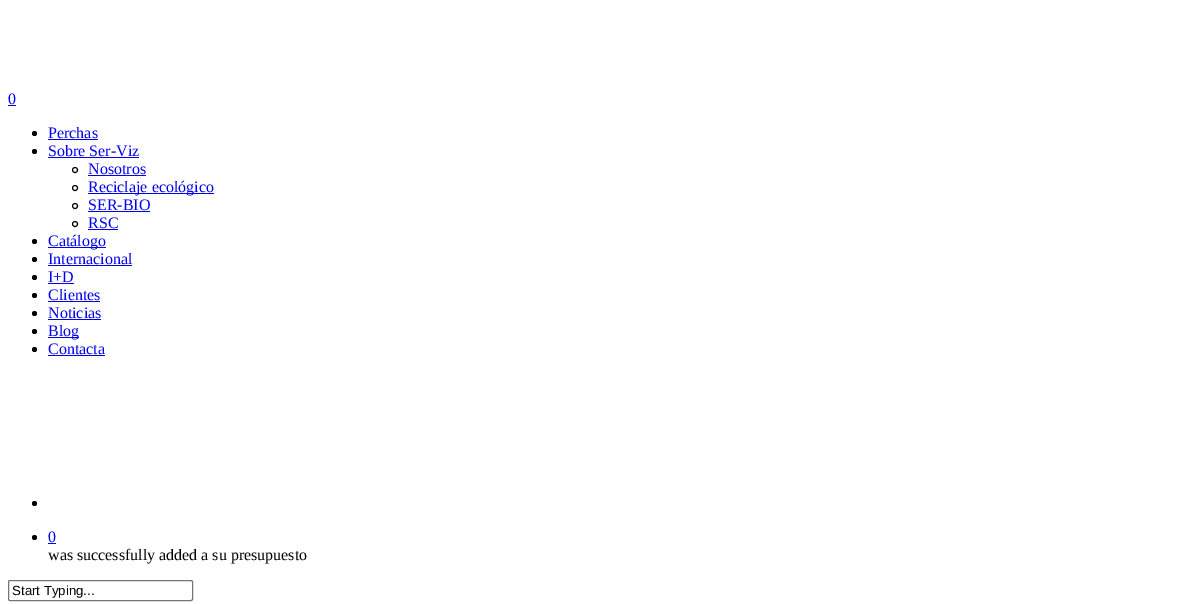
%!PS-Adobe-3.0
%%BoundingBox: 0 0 1189 604
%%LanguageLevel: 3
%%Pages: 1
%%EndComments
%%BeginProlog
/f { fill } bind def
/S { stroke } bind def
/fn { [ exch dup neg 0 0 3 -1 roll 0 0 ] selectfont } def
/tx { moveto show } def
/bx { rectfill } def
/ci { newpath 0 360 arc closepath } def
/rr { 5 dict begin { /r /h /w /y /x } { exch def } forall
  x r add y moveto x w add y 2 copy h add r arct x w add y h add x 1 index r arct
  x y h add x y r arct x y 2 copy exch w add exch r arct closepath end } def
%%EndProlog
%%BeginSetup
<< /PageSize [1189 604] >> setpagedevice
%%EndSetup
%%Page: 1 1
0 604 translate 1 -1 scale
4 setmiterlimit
1 setgray
0 0 1189 604 bx
/LiberationSerif-Regular 16 fn
0 0 0.933 setrgbcolor
(0) 8 104 tx
8 105 8 1 bx
0 setgray
34.5 133.5 2.5 ci f
0 0 0.933 setrgbcolor
(Perchas) 48 138 tx
48 139 50 1 bx
0 setgray
34.5 151.5 2.5 ci f
0 0 0.933 setrgbcolor
(Sobre Ser-Viz) 48 156 tx
48 157 91 1 bx
0 setgray
75 170 2.5 ci S
0 0 0.933 setrgbcolor
(Nosotros) 88 174 tx
88 175 58 1 bx
0 setgray
75 188 2.5 ci S
0 0 0.933 setrgbcolor
88 193 126 1 bx
(Reciclaje ecológico) 88 192 tx
0 setgray
75 206 2.5 ci S
0 0 0.933 setrgbcolor
(SER-BIO) 88 210 tx
88 211 62 1 bx
0 setgray
75 224 2.5 ci S
0 0 0.933 setrgbcolor
(RSC) 88 228 tx
88 229 30 1 bx
0 setgray
34.5 241.5 2.5 ci f
0 0 0.933 setrgbcolor
48 247 58 1 bx
(Catálogo) 48 246 tx
0 setgray
34.5 259.5 2.5 ci f
0 0 0.933 setrgbcolor
(Internacional) 48 264 tx
48 265 84 1 bx
0 setgray
34.5 277.5 2.5 ci f
0 0 0.933 setrgbcolor
(I+D) 48 282 tx
48 283 26 1 bx
0 setgray
34.5 295.5 2.5 ci f
0 0 0.933 setrgbcolor
(Clientes) 48 300 tx
48 301 52 1 bx
0 setgray
34.5 313.5 2.5 ci f
0 0 0.933 setrgbcolor
(Noticias) 48 318 tx
48 319 53 1 bx
0 setgray
34.5 331.5 2.5 ci f
0 0 0.933 setrgbcolor
48 337 31 1 bx
(Blog) 48 336 tx
0 setgray
34.5 349.5 2.5 ci f
0 0 0.933 setrgbcolor
(Contacta) 48 354 tx
48 355 57 1 bx
0 setgray
34.5 503.5 2.5 ci f
34.5 537.5 2.5 ci f
0 0 0.933 setrgbcolor
(0) 48 542 tx
48 543 8 1 bx
0 setgray
(was successfully added a su presupuesto) 48 560 tx
0.463 setgray
8.5 580.5 184 20 1.5 rr S
/LiberationSans-Regular 13.25 fn
0 setgray
(Start Typing...) 12 595 tx
showpage
%%EOF
